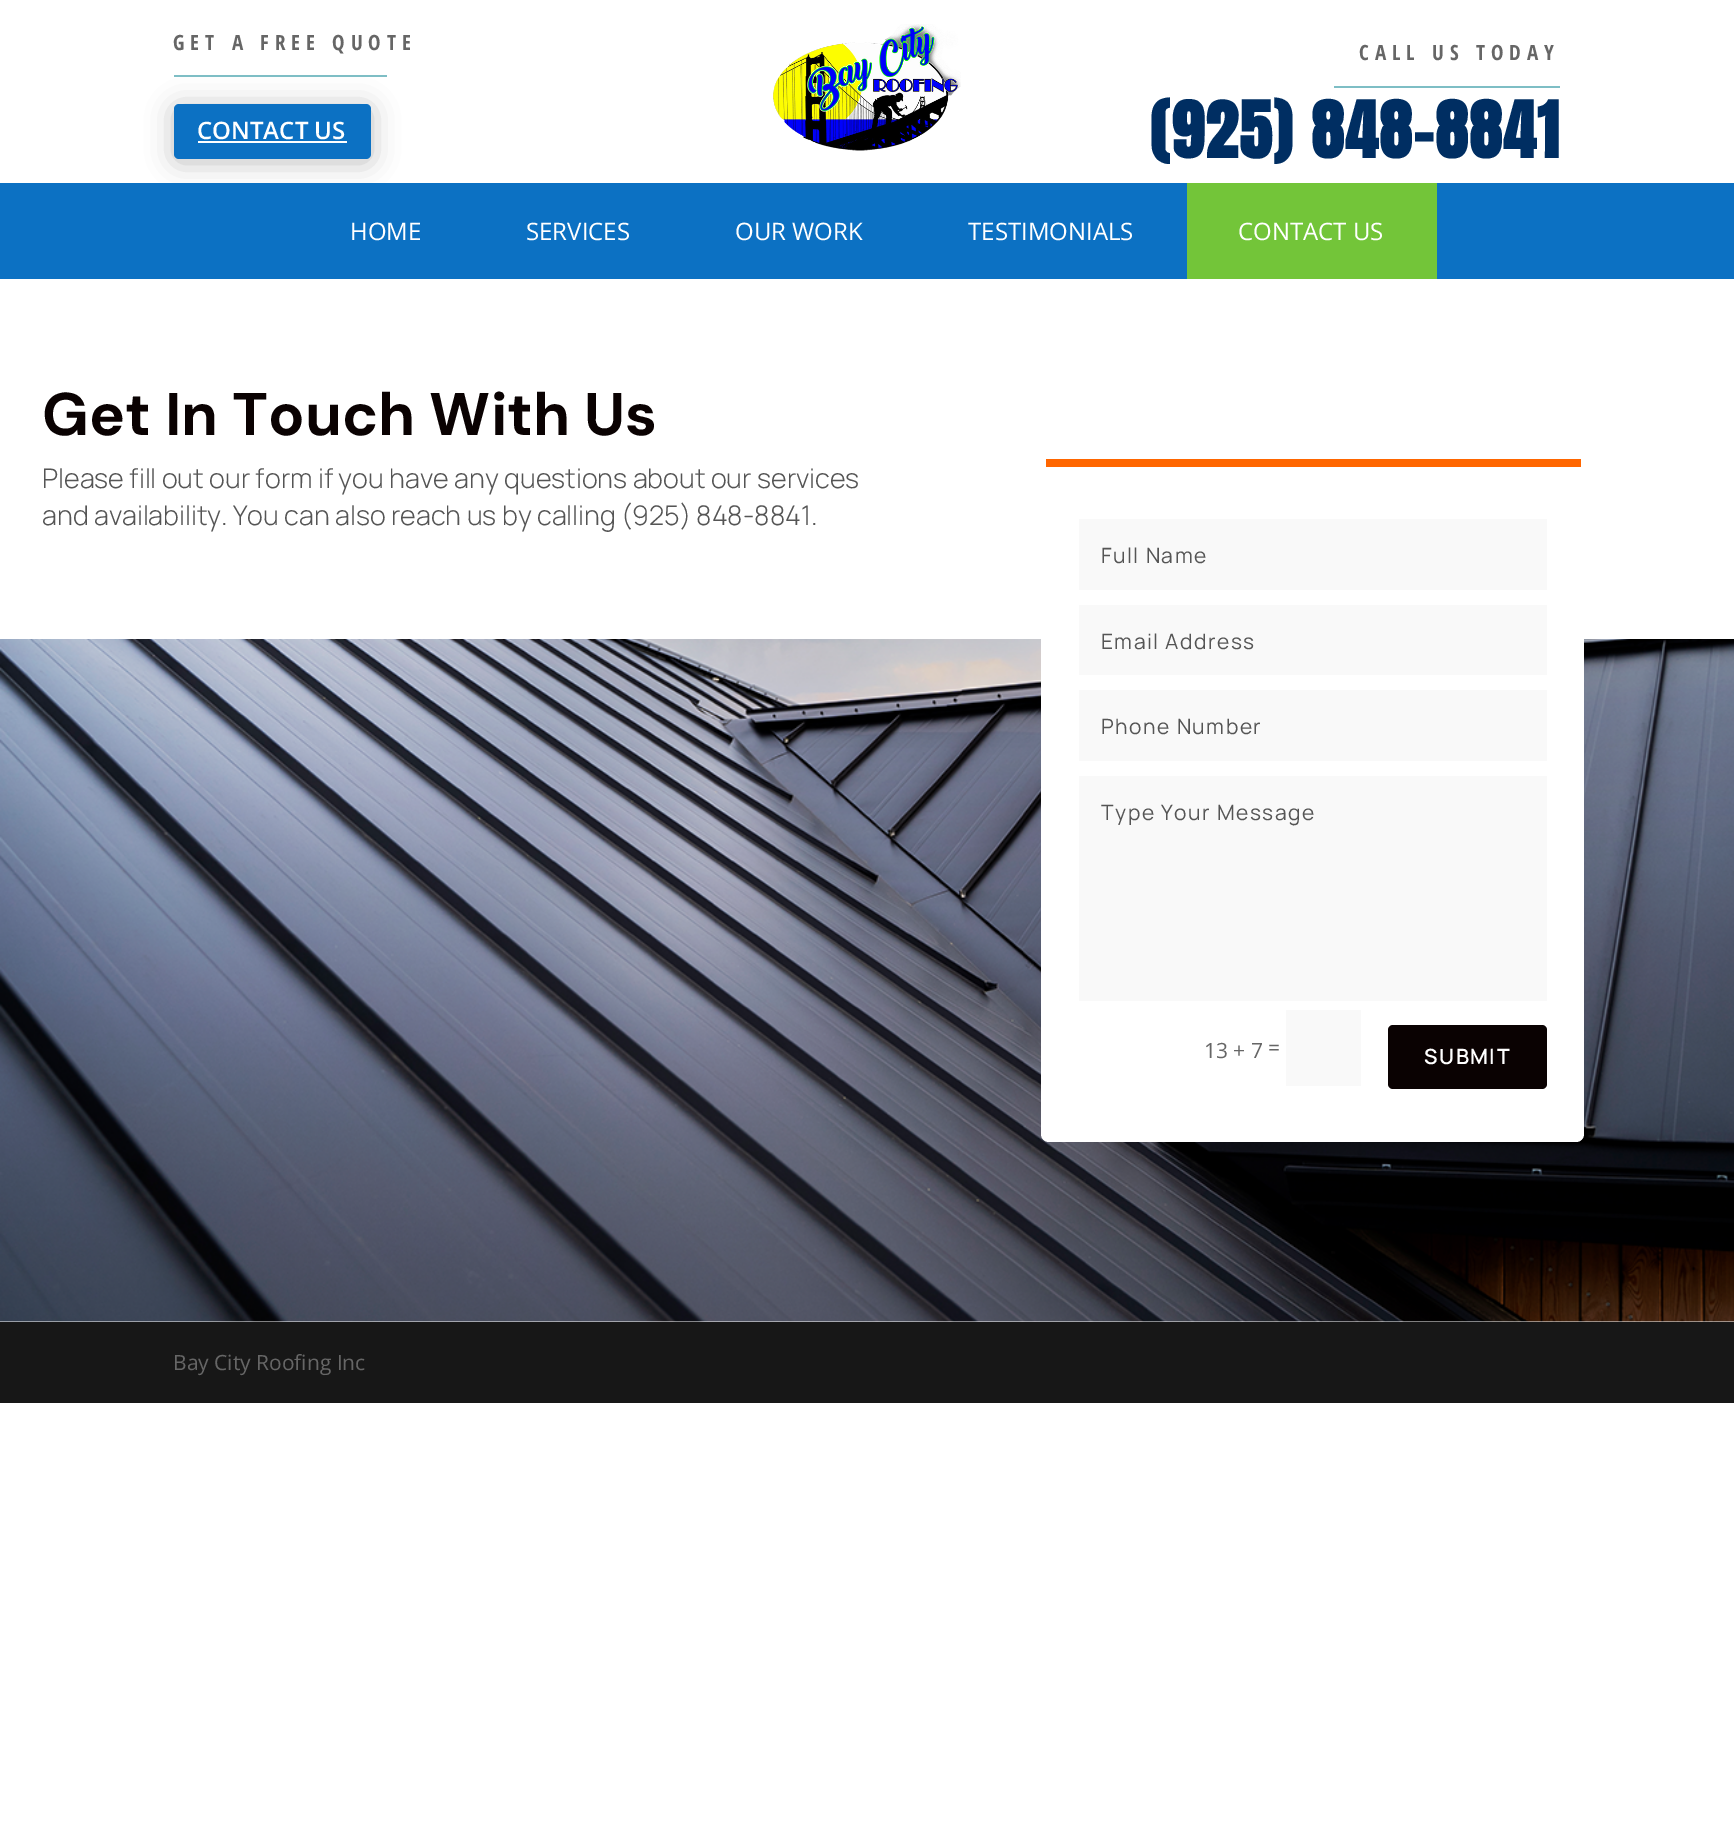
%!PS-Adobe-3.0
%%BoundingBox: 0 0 1734 1847
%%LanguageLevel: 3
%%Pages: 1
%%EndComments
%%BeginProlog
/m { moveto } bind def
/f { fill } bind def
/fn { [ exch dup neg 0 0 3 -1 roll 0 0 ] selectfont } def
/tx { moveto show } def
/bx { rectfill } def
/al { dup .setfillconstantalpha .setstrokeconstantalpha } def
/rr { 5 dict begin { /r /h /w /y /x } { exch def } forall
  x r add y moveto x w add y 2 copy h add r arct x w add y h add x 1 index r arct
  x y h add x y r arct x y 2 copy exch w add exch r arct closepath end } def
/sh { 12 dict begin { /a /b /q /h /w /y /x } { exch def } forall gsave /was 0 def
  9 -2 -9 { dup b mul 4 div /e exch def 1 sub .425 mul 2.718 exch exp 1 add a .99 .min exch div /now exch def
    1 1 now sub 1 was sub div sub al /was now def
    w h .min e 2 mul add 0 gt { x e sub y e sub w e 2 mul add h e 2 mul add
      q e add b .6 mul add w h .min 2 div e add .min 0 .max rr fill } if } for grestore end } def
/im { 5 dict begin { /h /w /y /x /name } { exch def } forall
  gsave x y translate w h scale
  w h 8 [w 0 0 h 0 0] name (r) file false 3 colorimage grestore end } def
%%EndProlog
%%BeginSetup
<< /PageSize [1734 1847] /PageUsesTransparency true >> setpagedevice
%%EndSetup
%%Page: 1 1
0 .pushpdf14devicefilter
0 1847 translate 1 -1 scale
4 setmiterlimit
1 setgray
0 0 1734 1847 bx
/OpenSansCondensed-Bold 21 fn
0.4 setgray
173 50 m 6 0 (GET A FREE QUOTE) ashow
0 setgray
174 107 197 55 5 13.5 0.25 sh
0.494 0.745 0.773 setrgbcolor
174 75 213 2 bx
0.047 0.443 0.765 setrgbcolor
174 104 197 55 5 rr f
/OpenSans-SemiBold 24 fn
1 setgray
(CONTACT US) 197 139 tx
198 141 149 2 bx
(image0.raw) 773 24 188 127 im
/OpenSansCondensed-Bold 21 fn
0.4 setgray
1359 60 m 6 0 (CALL US TODAY) ashow
0.494 0.745 0.773 setrgbcolor
1334 86 226 2 bx
/Anton-Bold 66 fn
0 0.18 0.384 setrgbcolor
1150 158 m 1.5 0 (\(925\) 848-8841) ashow
0.047 0.443 0.765 setrgbcolor
0 183 1734 96 bx
/OpenSans-Regular 24 fn
1 setgray
(HOME) 350 240 tx
(SERVICES) 526 240 tx
(OUR WORK) 735 240 tx
(TESTIMONIALS) 968 240 tx
0.451 0.773 0.224 setrgbcolor
1187 183 250 96 bx
1 setgray
(CONTACT US) 1238 240 tx
/DMSans-Bold 60 fn
0.039 0.008 0.008 setrgbcolor
(Get In Touch With Us) 42 435 tx
/Manrope-Light 27 fn
0.333 setgray
(Please fill out our form if you have any questions about our services) 42 488 tx
(and availability. You can also reach us by calling \(925\) 848-8841.) 42 525 tx
(image1.raw) 0 639 1734 683 im
1 setgray
1041 459 543 683 8 rr f
1 0.4 0 setrgbcolor
1046 459 535 8 bx
0.976 setgray
1079 519 468 71 bx
/Manrope-Regular 21 fn
0.333 setgray
1101 563 m 1.5 0 (Full Name) ashow
0.976 setgray
1079 605 468 70 bx
0.333 setgray
1101 649 m 1.5 0 (Email Address) ashow
0.976 setgray
1079 690 468 71 bx
0.333 setgray
1101 734 m 1.5 0 (Phone Number) ashow
0.976 setgray
1079 776 468 225 bx
0.333 setgray
1101 820 m 1.5 0 (Type Your Message) ashow
/OpenSans-Regular 21 fn
0.4 setgray
(13 + 7) 1204 1058 tx
(=) 1268 1055 tx
0.976 setgray
1286 1010 75 76 bx
0.039 0.008 0.008 setrgbcolor
1388 1025 159 64 5 rr f
/Manrope-SemiBold 21 fn
1 setgray
1424 1064 m 1.5 0 (SUBMIT) ashow
0.09 setgray
0 1322 1734 81 bx
/OpenSans-Regular 21 fn
0.4 setgray
(Bay City Roofing Inc) 173 1370 tx
.poppdf14devicefilter showpage
%%EOF
